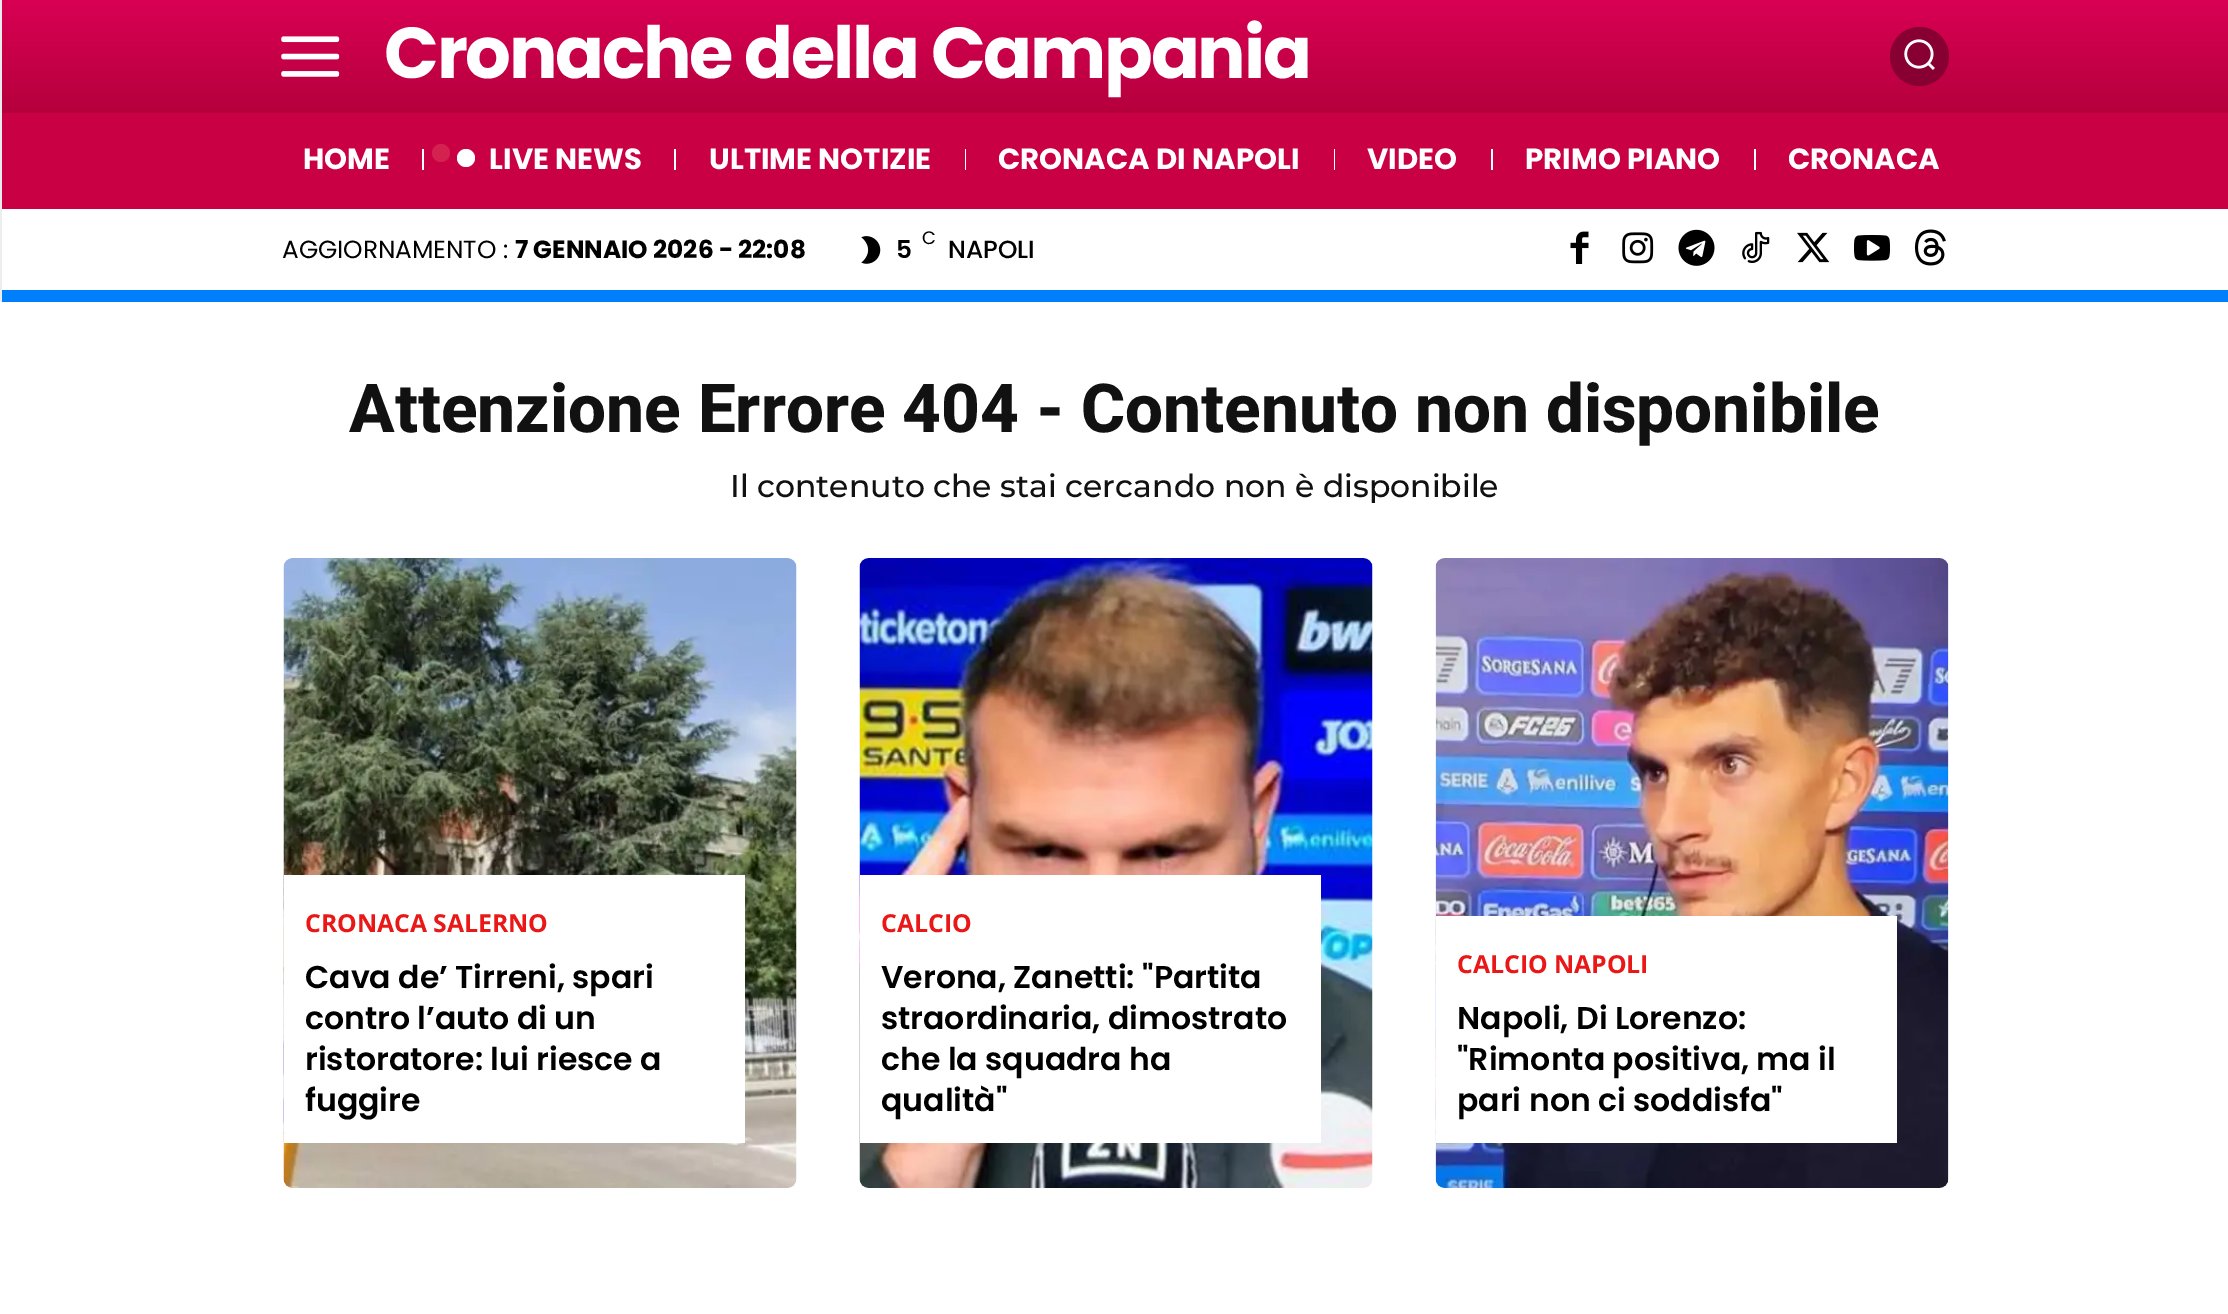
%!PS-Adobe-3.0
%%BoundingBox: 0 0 2228 1314
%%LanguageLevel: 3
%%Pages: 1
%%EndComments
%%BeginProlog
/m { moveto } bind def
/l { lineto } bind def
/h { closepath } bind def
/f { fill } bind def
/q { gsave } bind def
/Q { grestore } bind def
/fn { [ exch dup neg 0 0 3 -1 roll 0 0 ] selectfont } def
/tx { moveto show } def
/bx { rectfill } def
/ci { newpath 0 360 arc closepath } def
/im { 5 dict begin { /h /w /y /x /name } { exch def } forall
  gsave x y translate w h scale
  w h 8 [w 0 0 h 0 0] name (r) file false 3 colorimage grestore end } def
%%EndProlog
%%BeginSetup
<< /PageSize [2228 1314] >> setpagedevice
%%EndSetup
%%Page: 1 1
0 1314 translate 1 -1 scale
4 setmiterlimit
0.929 setgray
0 0 2228 1314 bx
q 2 0 m 2228 0 l 2228 113 l 2 113 l h clip newpath
<< /ShadingType 2 /ColorSpace /DeviceRGB /Coords [1116 113 1116 -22] /Extend [true true] /Function << /FunctionType 2 /Domain [0 1] /C0 [0.71 0 0.235] /C1 [0.878 0 0.349] /N 1 >> >> shfill Q
(image0.raw) 281 36 59 41 im
/Poppins-Bold 72 fn
1 setgray
384 78 m -2.25 0 (Cronache della Campania) ashow
0.529 0 0.192 setrgbcolor
1919.5 56.5 29.5 ci f
(image1.raw) 1904 39 31 31 im
0.788 0 0.263 setrgbcolor
2 113 2226 96 bx
/Poppins-Bold 29.25 fn
1 setgray
(HOME) 303 169 tx
422 149 2 21 bx
0.827 0.133 0.31 setrgbcolor
441 153 9 ci f
1 setgray
466 158 9 ci f
(LIVE NEWS) 489 169 tx
674 149 2 21 bx
(ULTIME NOTIZIE) 709 169 tx
965 149 1 21 bx
(CRONACA DI NAPOLI) 998 169 tx
1334 149 1 21 bx
(VIDEO) 1367 169 tx
1491 149 2 21 bx
(PRIMO PIANO) 1525 169 tx
1754 149 2 21 bx
(CRONACA) 1788 169 tx
2 209 2226 81 bx
/Poppins-Regular 24.75 fn
0 setgray
(AGGIORNAMENTO :) 282 258 tx
/Poppins-Bold 24.75 fn
(7 GENNAIO 2026 - 22:08) 515 258 tx
(image2.raw) 861 236 20 28 im
/Poppins-SemiBold 24.75 fn
(5) 896 258 tx
/Poppins-Regular 18 fn
(C) 922 244 tx
/Poppins-Medium 24.75 fn
(NAPOLI) 948 258 tx
(image3.raw) 1570 231 19 33 im
(image4.raw) 1622 232 32 32 im
(image5.raw) 1678 229 37 37 im
(image6.raw) 1742 231 28 32 im
(image7.raw) 1797 232 33 31 im
(image8.raw) 1854 235 36 26 im
(image9.raw) 1914 229 32 37 im
0 0.494 0.988 setrgbcolor
2 290 2226 12 bx
1 setgray
0 302 2228 1012 bx
/Roboto-ExtraBold 67.5 fn
0.067 setgray
(Attenzione Errore 404 - Contenuto non disponibile) 349 432 tx
/Montserrat-Medium 31.5 fn
(Il contenuto che stai cercando non è disponibile) 730 497 tx
(image10.raw) 283 558 514 630 im
1 setgray
284 875 461 268 bx
/OpenSans-Bold 24.75 fn
0.918 0.09 0.09 setrgbcolor
(CRONACA SALERNO) 305 932 tx
/Poppins-SemiBold 31.5 fn
0 setgray
(Cava de’ Tirreni, spari) 305 988 tx
(contro l’auto di un) 305 1029 tx
(ristoratore: lui riesce a) 305 1070 tx
(fuggire) 305 1111 tx
(image11.raw) 859 558 514 630 im
1 setgray
860 875 461 268 bx
/OpenSans-Bold 24.75 fn
0.918 0.09 0.09 setrgbcolor
(CALCIO) 881 932 tx
/Poppins-SemiBold 31.5 fn
0 setgray
(Verona, Zanetti: "Partita) 881 988 tx
(straordinaria, dimostrato) 881 1029 tx
(che la squadra ha) 881 1070 tx
(qualità") 881 1111 tx
(image12.raw) 1435 558 514 630 im
1 setgray
1436 916 461 227 bx
/OpenSans-Bold 24.75 fn
0.918 0.09 0.09 setrgbcolor
(CALCIO NAPOLI) 1457 973 tx
/Poppins-SemiBold 31.5 fn
0 setgray
(Napoli, Di Lorenzo:) 1457 1029 tx
("Rimonta positiva, ma il) 1457 1070 tx
(pari non ci soddisfa") 1457 1111 tx
showpage
%%EOF
